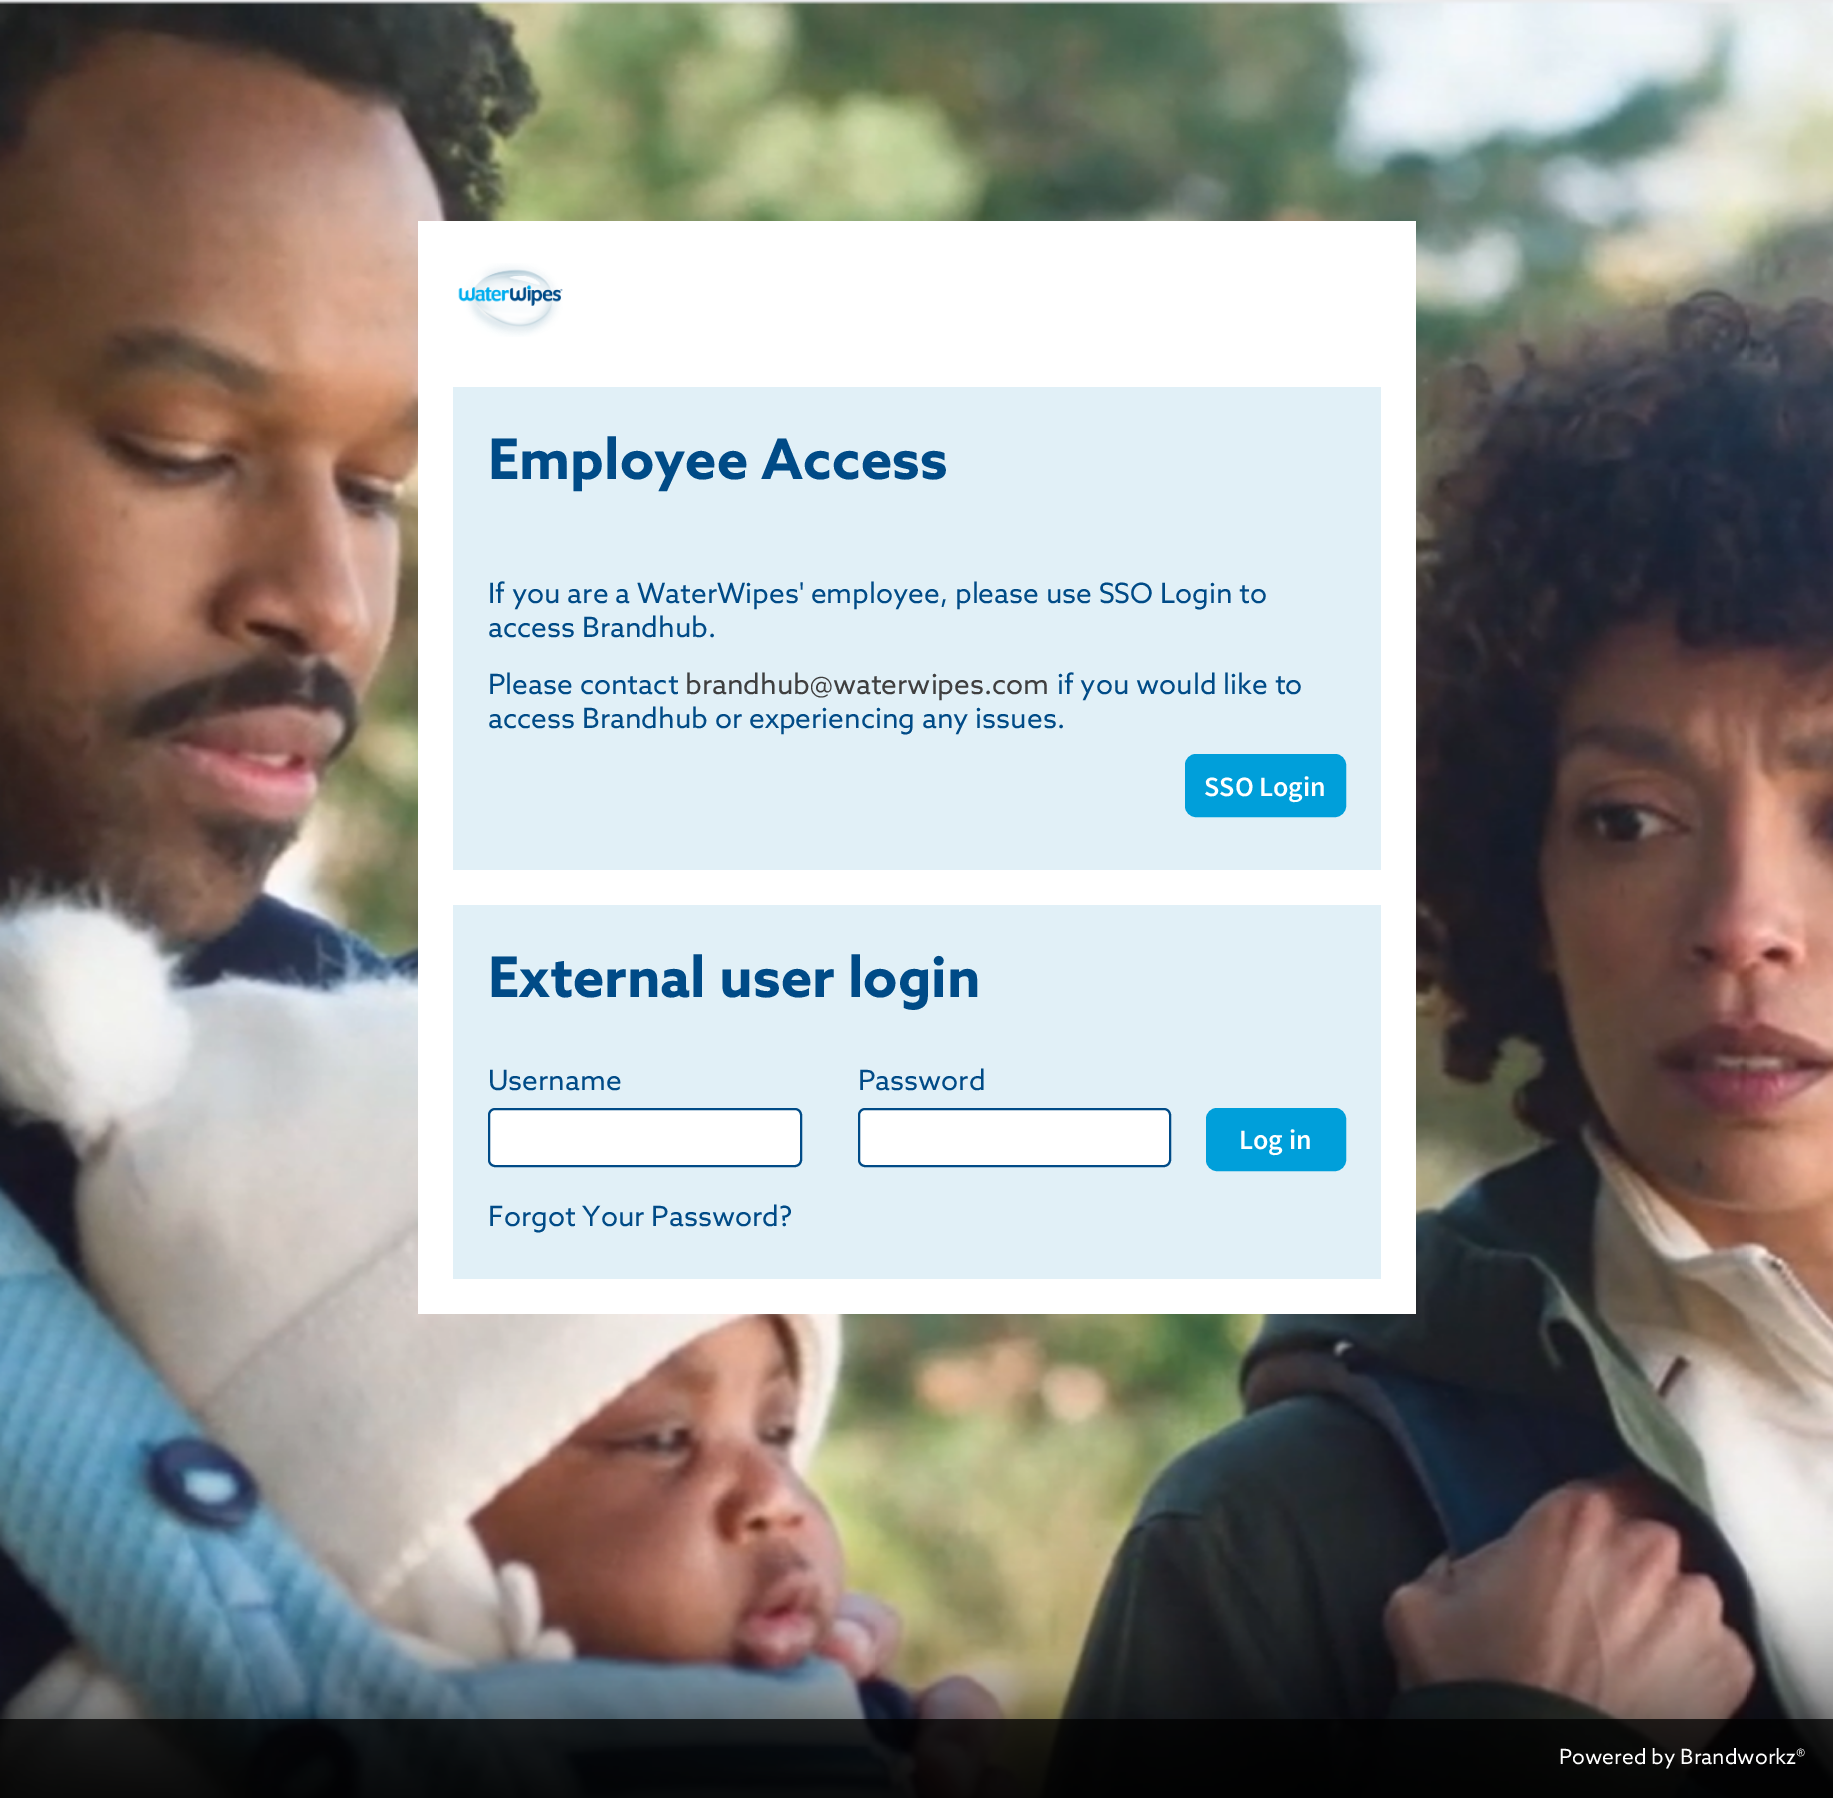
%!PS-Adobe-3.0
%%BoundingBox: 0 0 1833 1798
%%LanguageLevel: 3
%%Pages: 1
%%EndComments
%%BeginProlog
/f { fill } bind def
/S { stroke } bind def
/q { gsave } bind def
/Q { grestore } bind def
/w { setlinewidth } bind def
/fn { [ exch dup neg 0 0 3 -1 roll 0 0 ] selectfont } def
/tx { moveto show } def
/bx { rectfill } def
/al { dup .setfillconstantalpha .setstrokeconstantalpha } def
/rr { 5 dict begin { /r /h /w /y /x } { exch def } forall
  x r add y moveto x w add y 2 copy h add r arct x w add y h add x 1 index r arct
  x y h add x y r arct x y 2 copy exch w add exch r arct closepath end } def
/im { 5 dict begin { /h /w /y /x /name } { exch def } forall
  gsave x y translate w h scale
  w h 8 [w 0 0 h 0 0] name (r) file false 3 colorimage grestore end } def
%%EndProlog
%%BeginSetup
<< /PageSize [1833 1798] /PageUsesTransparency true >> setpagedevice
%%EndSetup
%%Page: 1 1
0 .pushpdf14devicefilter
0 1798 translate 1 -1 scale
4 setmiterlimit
0.918 0.922 0.929 setrgbcolor
0 0 1833 1798 bx
(image0.raw) 0 1 1833 1797 im
1 setgray
418 221 998 1093 bx
(image1.raw) 458 263 105 74 im
0.882 0.941 0.969 setrgbcolor
453 387 928 483 bx
/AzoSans-Bold 56 fn
0 0.294 0.529 setrgbcolor
(Employee Access) 488 479 tx
/AzoSans-Regular 28 fn
(If you are a WaterWipes' employee, please use SSO Login to) 488 603 tx
(access Brandhub.) 488 637 tx
(Please contact) 488 694 tx
0.247 setgray
(brandhub@waterwipes.com) 685 694 tx
0 0.294 0.529 setrgbcolor
(if you would like to) 1057 694 tx
(access Brandhub or experiencing any issues.) 488 728 tx
0 0.624 0.855 setrgbcolor
1186 755 159 61 10 rr q f Q
2 w
S
/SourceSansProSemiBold-SemiBold 28 fn
1 setgray
(SSO Login) 1204 796 tx
0.882 0.941 0.969 setrgbcolor
453 905 928 374 bx
/AzoSans-Bold 56 fn
0 0.294 0.529 setrgbcolor
(External user login) 488 997 tx
/AzoSans-Regular 28 fn
(Username) 488 1090 tx
1 setgray
489 1109 312 57 6 rr q f Q
0 0.294 0.529 setrgbcolor
S
(Password) 858 1090 tx
1 setgray
859 1109 311 57 6 rr q f Q
0 0.294 0.529 setrgbcolor
S
0 0.624 0.855 setrgbcolor
1207 1109 138 61 10 rr q f Q
S
/SourceSansProSemiBold-SemiBold 28 fn
1 setgray
(Log in) 1239 1149 tx
/AzoSans-Regular 28 fn
0 0.294 0.529 setrgbcolor
(Forgot Your Password?) 488 1226 tx
0.75 al
0 setgray
0 1719 1833 79 bx
/AzoSans-Regular 21 fn
1 al
1 setgray
(Powered by Brandworkz®) 1559 1764 tx
.poppdf14devicefilter showpage
%%EOF
